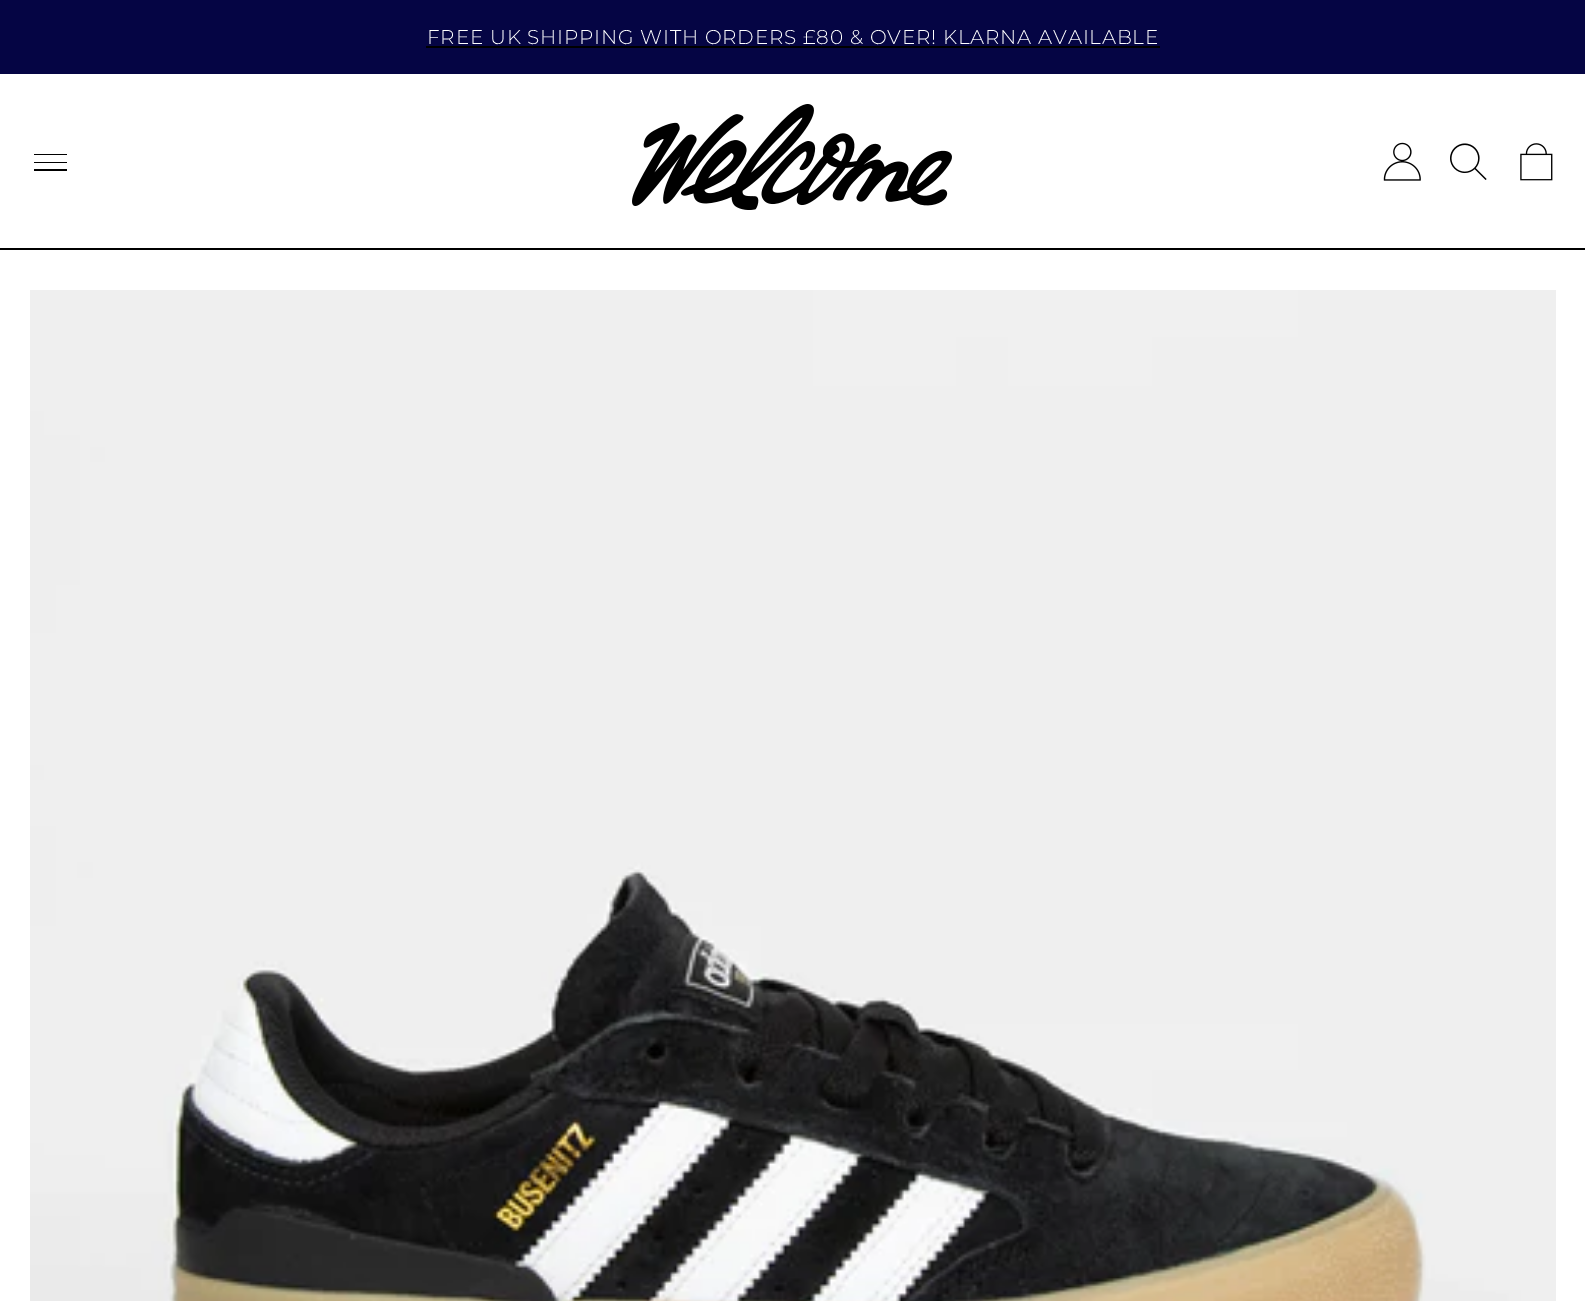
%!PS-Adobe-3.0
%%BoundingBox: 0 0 1585 1301
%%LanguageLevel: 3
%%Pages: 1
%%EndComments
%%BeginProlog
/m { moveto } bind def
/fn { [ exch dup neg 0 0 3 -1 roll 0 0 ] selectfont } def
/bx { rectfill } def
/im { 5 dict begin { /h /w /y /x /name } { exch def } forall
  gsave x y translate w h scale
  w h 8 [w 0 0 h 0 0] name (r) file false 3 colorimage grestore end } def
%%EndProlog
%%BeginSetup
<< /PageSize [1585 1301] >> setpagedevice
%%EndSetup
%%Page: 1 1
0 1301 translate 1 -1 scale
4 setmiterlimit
1 setgray
0 0 1585 1301 bx
0.02 0.02 0.267 setrgbcolor
0 0 1585 74 bx
/Montserrat-Light 20 fn
1 setgray
427 44 m 0.8 0 (FREE UK SHIPPING WITH ORDERS £80 & OVER! KLARNA AVAILABLE) ashow
0 setgray
426 46 734 2 bx
0 248 1585 2 bx
34 154 33 1 bx
34 162 33 1 bx
34 169 33 2 bx
(image0.raw) 632 104 320 106 im
(image1.raw) 1383 142 38 39 im
(image2.raw) 1450 143 37 37 im
(image3.raw) 1520 143 33 38 im
(image4.raw) 30 290 1526 1011 im
showpage
%%EOF
